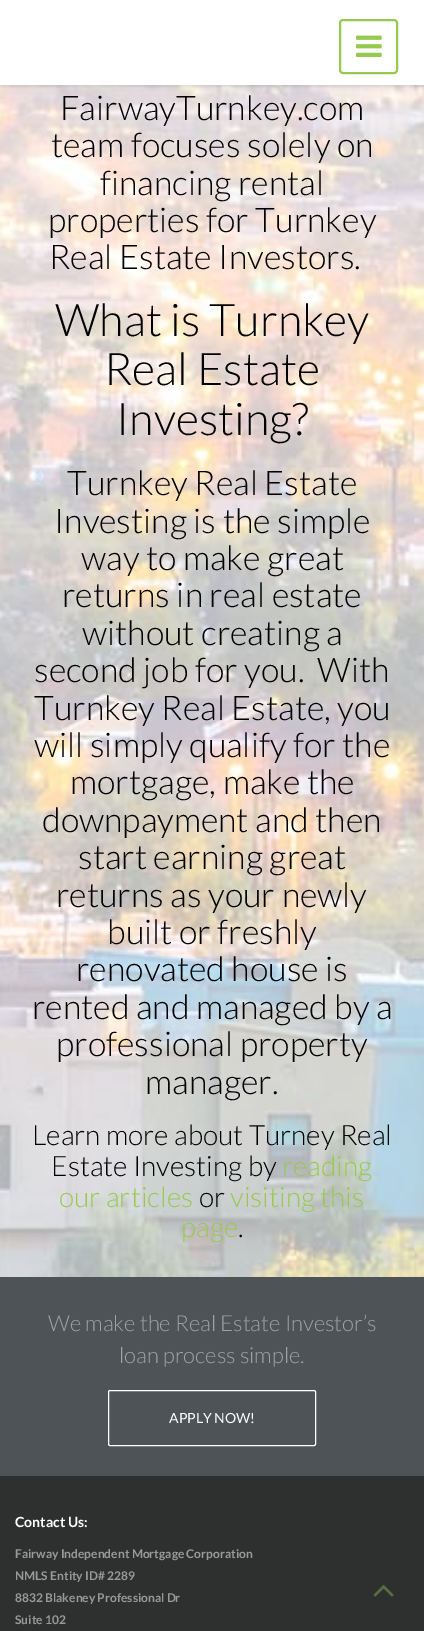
%!PS-Adobe-3.0
%%BoundingBox: 0 0 424 1631
%%LanguageLevel: 3
%%Pages: 1
%%EndComments
%%BeginProlog
/S { stroke } bind def
/w { setlinewidth } bind def
/fn { [ exch dup neg 0 0 3 -1 roll 0 0 ] selectfont } def
/tx { moveto show } def
/bx { rectfill } def
/al { dup .setfillconstantalpha .setstrokeconstantalpha } def
/rr { 5 dict begin { /r /h /w /y /x } { exch def } forall
  x r add y moveto x w add y 2 copy h add r arct x w add y h add x 1 index r arct
  x y h add x y r arct x y 2 copy exch w add exch r arct closepath end } def
/sh { 12 dict begin { /a /b /q /h /w /y /x } { exch def } forall gsave /was 0 def
  9 -2 -9 { dup b mul 4 div /e exch def 1 sub .425 mul 2.718 exch exp 1 add a .99 .min exch div /now exch def
    1 1 now sub 1 was sub div sub al /was now def
    w h .min e 2 mul add 0 gt { x e sub y e sub w e 2 mul add h e 2 mul add
      q e add b .6 mul add w h .min 2 div e add .min 0 .max rr fill } if } for grestore end } def
/im { 5 dict begin { /h /w /y /x /name } { exch def } forall
  gsave x y translate w h scale
  w h 8 [w 0 0 h 0 0] name (r) file false 3 colorimage grestore end } def
%%EndProlog
%%BeginSetup
<< /PageSize [424 1631] /PageUsesTransparency true >> setpagedevice
%%EndSetup
%%Page: 1 1
0 .pushpdf14devicefilter
0 1631 translate 1 -1 scale
4 setmiterlimit
1 setgray
0 0 424 1631 bx
(image1.raw) 0 85 424 1192 im
0.392 setgray
0 1 424 85 0 2.5 0.3 sh
1 setgray
0 0 424 85 bx
0.588 0.792 0.31 setrgbcolor
2 w
340 20 57 53 3 rr S
(image0.raw) 356 35 26 22 im
/Lato-Light 34 fn
0 setgray
(FairwayTurnkey.com) 60 120 tx
(team focuses solely on) 51 157 tx
(financing rental) 100 195 tx
(properties for Turnkey) 48 232 tx
(Real Estate Investors.) 49 269 tx
/Lato-Light 45 fn
(What is Turnkey) 55 336 tx
(Real Estate) 104 385 tx
(Investing?) 116 435 tx
/Lato-Light 34 fn
(Turnkey Real Estate) 67 495 tx
(Investing is the simple) 54 533 tx
(way to make great) 81 570 tx
(returns in real estate) 62 607 tx
(without creating a) 82 645 tx
(second job for you.  With) 34 682 tx
(Turnkey Real Estate, you) 34 720 tx
(will simply qualify for the) 34 757 tx
(mortgage, make the) 70 794 tx
(downpayment and then) 42 832 tx
(start earning great) 78 869 tx
(returns as your newly) 56 907 tx
(built or freshly) 107 944 tx
(renovated house is) 76 981 tx
(rented and managed by a) 32 1019 tx
(professional property) 56 1056 tx
(manager.) 145 1094 tx
/Lato-Light 28 fn
(Learn more about Turney Real) 32 1145 tx
(Estate Investing by) 51 1176 tx
0.588 0.792 0.31 setrgbcolor
(reading) 282 1176 tx
(our articles) 59 1207 tx
0 setgray
(or) 199 1207 tx
0.588 0.792 0.31 setrgbcolor
(visiting this) 230 1207 tx
(page) 181 1237 tx
0 setgray
(.) 238 1237 tx
0.302 0.325 0.341 setrgbcolor
0 1277 424 199 bx
/Lato-Light 22 fn
0.635 setgray
(We make the Real Estate Investor’s) 48 1331 tx
(loan process simple.) 119 1363 tx
1 setgray
1 w
108.5 1390.5 207 55 1.5 rr S
/Lato-Regular 14 fn
(APPLY NOW!) 169 1423 tx
0.18 0.188 0.188 setrgbcolor
0 1476 424 155 bx
/Lato-Bold 14 fn
1 setgray
(Contact Us:) 15 1527 tx
/Lato-Bold 12 fn
0.6 setgray
(Fairway Independent Mortgage Corporation) 15 1558 tx
(NMLS Entity ID# 2289) 15 1580 tx
(8832 Blakeney Professional Dr) 15 1602 tx
(Suite 102) 15 1624 tx
(image2.raw) 373 1585 21 12 im
.poppdf14devicefilter showpage
%%EOF
